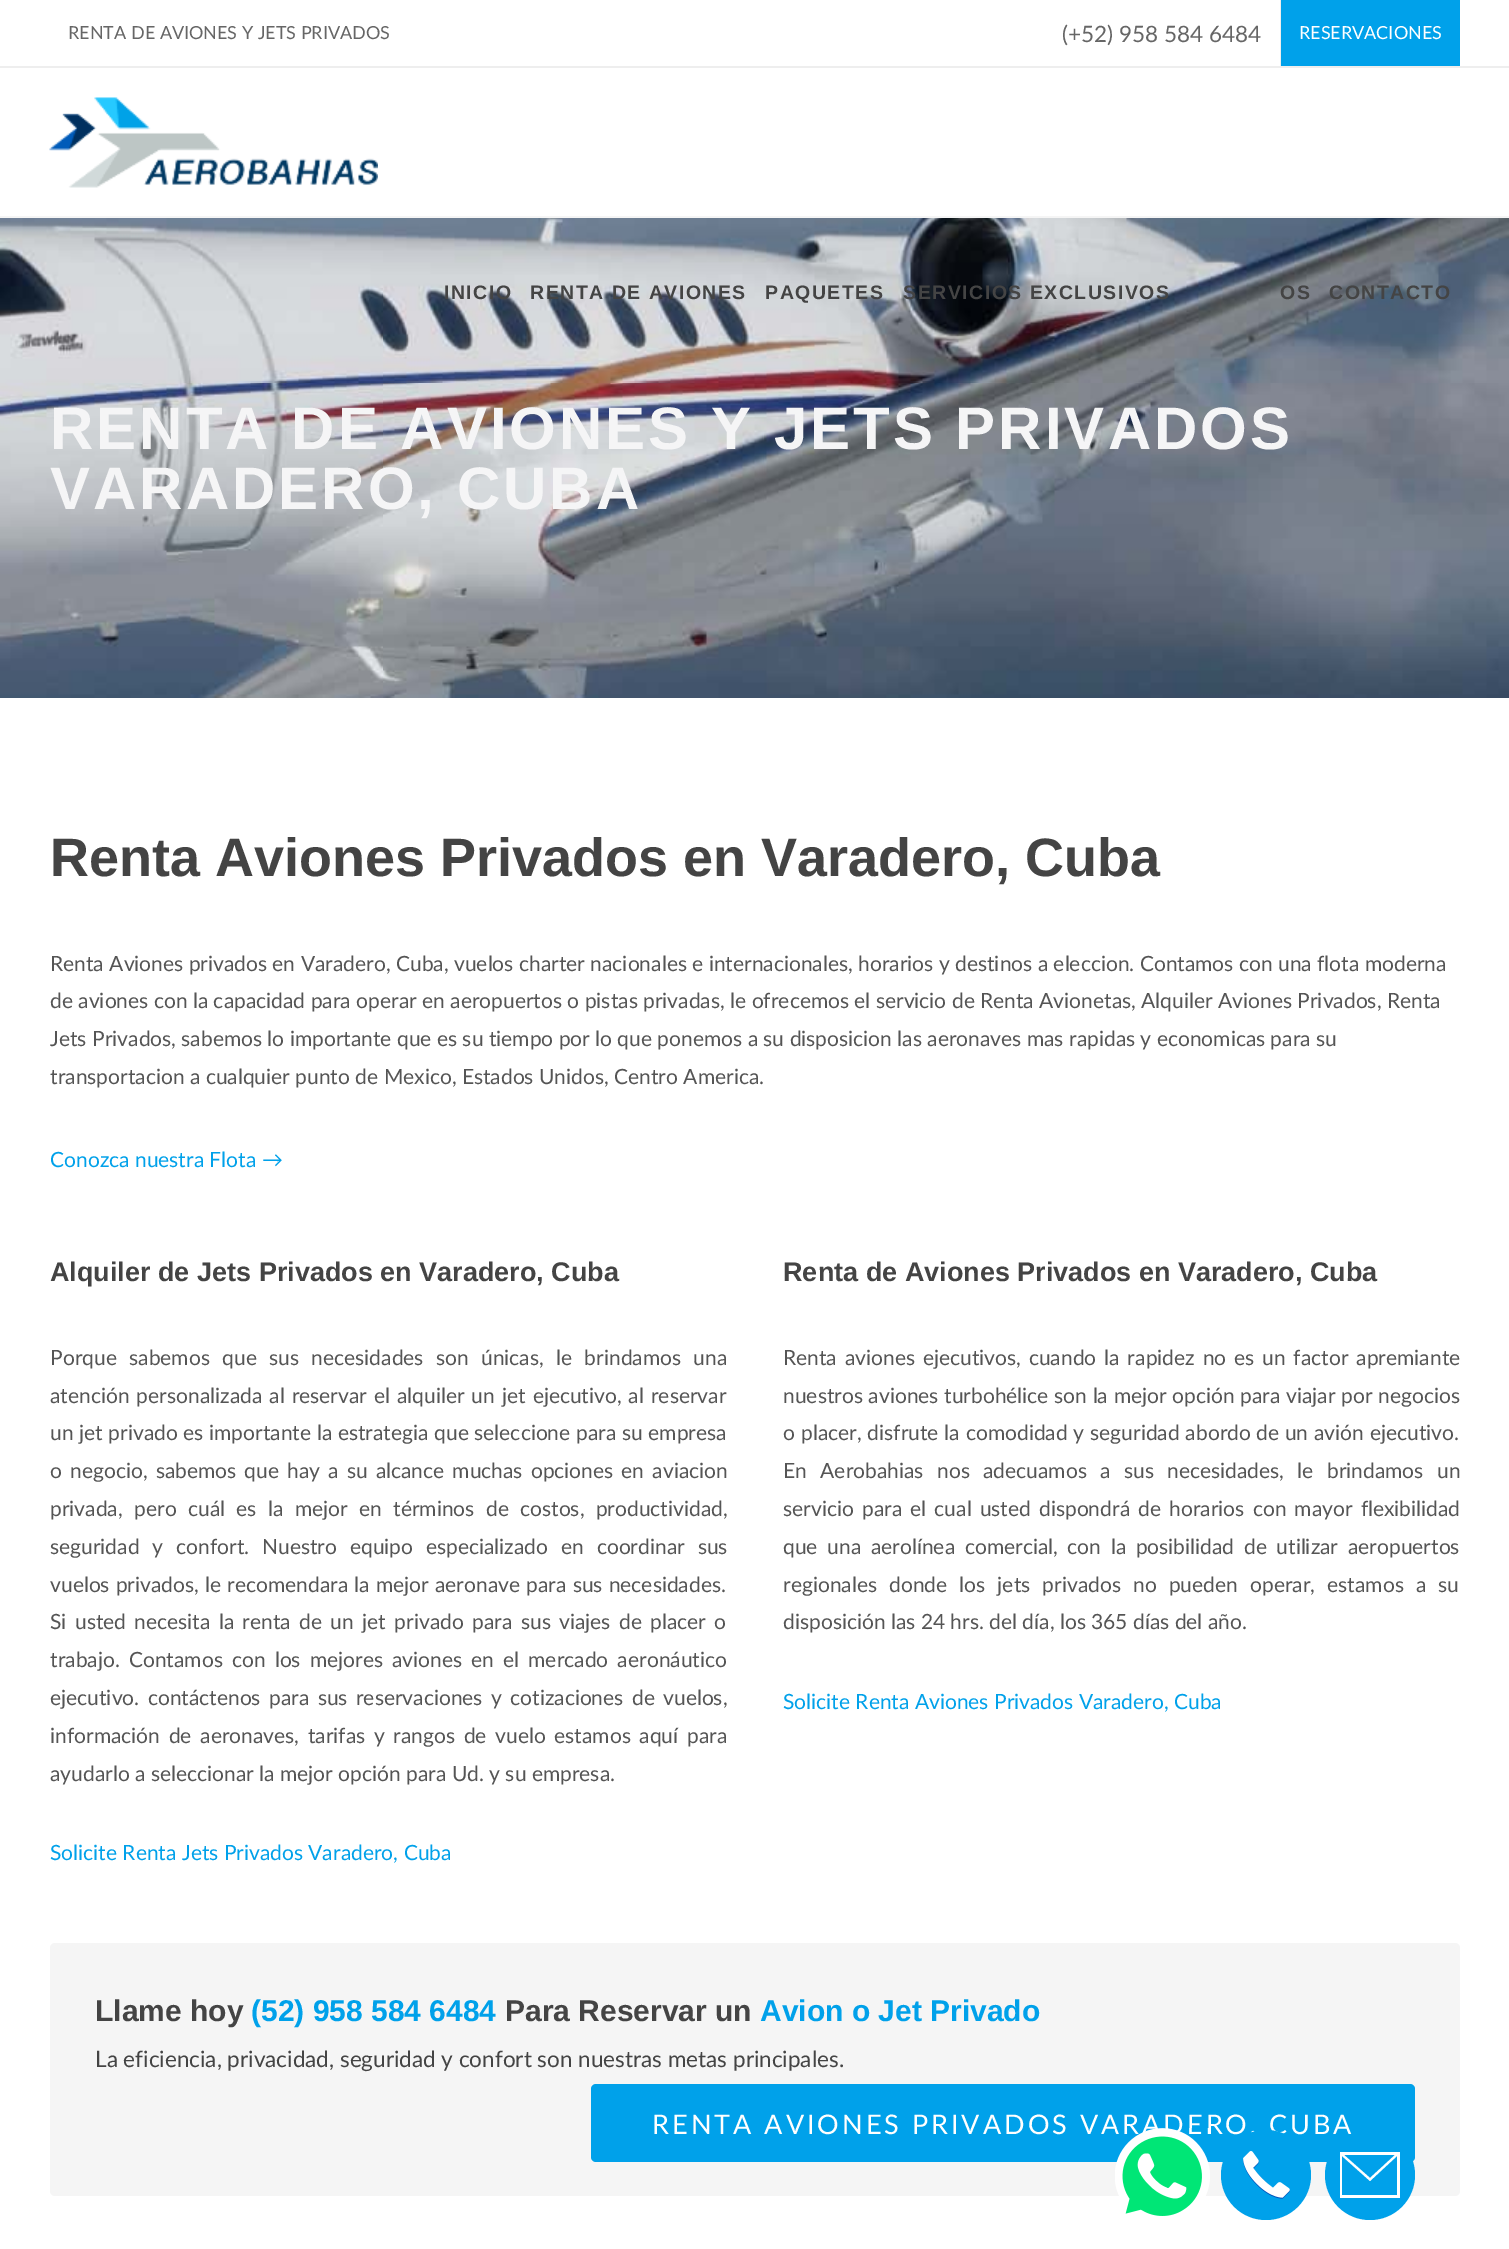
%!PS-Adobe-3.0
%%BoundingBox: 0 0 1509 2249
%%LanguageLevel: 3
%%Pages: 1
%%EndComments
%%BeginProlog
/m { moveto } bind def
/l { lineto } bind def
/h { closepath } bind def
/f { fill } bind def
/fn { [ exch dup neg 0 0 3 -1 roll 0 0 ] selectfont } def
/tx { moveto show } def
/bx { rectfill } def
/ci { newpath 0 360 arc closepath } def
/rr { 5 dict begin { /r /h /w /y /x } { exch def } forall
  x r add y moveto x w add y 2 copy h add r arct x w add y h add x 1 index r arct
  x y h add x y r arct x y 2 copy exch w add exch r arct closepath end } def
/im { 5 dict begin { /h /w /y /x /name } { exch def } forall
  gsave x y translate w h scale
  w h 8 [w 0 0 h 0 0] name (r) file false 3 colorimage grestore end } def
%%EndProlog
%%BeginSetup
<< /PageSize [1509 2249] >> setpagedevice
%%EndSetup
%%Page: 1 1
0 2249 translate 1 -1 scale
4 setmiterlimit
1 setgray
0 0 1509 2249 bx
0.933 setgray
0 66 1509 2 bx
/Lato-Regular 18 fn
0.4 setgray
(RENTA DE AVIONES Y JETS PRIVADOS) 68 39 tx
/Lato-Regular 22.5 fn
(\(+52\) 958 584 6484) 1062 42 tx
0.933 setgray
1280 0 1 66 bx
0 0.631 0.918 setrgbcolor
1281 0 179 66 bx
/Lato-Regular 18 fn
1 setgray
(RESERVACIONES) 1299 39 tx
0.961 setgray
0 216 1509 2 bx
(image0.raw) 49 97 329 91 im
(image1.raw) 0 218 1509 480 im
/LiberationSans-Bold 19.5 fn
0.267 setgray
444 299 m 1.5 0 (INICIO) ashow
530 299 m 1.5 0 (RENTA DE AVIONES) ashow
765 299 m 1.5 0 (PAQUETES) ashow
903 299 m 1.5 0 (SERVICIOS EXCLUSIVOS) ashow
1280 299 m 1.5 0 (OS) ashow
1329 299 m 1.5 0 (CONTACTO) ashow
/LiberationSans-Bold 60 fn
0.961 0.961 0.965 setrgbcolor
50 449 m 3 0 (RENTA DE AVIONES Y JETS PRIVADOS) ashow
50 509 m 3 0 (VARADERO, CUBA) ashow
/LiberationSans-Bold 54 fn
0.267 setgray
(Renta Aviones Privados en Varadero, Cuba) 50 876 tx
/Lato-Regular 21 fn
0.333 setgray
(Renta Aviones privados en Varadero, Cuba, vuelos charter nacionales e internacionales, horarios y destinos a eleccion. Contamos con una flota moderna) 50 971 tx
(de aviones con la capacidad para operar en aeropuertos o pistas privadas, le ofrecemos el servicio de Renta Avionetas, Alquiler Aviones Privados, Renta) 50 1008 tx
(Jets Privados, sabemos lo importante que es su tiempo por lo que ponemos a su disposicion las aeronaves mas rapidas y economicas para su) 50 1046 tx
(transportacion a cualquier punto de Mexico, Estados Unidos, Centro America.) 50 1084 tx
0 0.631 0.918 setrgbcolor
(Conozca nuestra Flota →) 50 1167 tx
/LiberationSans-Bold 27 fn
0.267 setgray
(Alquiler de Jets Privados en Varadero, Cuba) 50 1281 tx
/Lato-Regular 21 fn
0.333 setgray
50 1365 m 7 0 32 (Porque sabemos que sus necesidades son únicas, le brindamos una) widthshow
50 1403 m 1.6 0 32 (atención personalizada al reservar el alquiler un jet ejecutivo, al reservar) widthshow
50 1440 m 0.25 0 32 (un jet privado es importante la estrategia que seleccione para su empresa) widthshow
50 1478 m 2.75 0 32 (o negocio, sabemos que hay a su alcance muchas opciones en aviacion) widthshow
50 1516 m 6 0 32 (privada, pero cuál es la mejor en términos de costos, productividad,) widthshow
50 1554 m 7.5 0 32 (seguridad y confort. Nuestro equipo especializado en coordinar sus) widthshow
50 1592 m 0.75 0 32 (vuelos privados, le recomendara la mejor aeronave para sus necesidades.) widthshow
50 1629 m 3 0 32 (Si usted necesita la renta de un jet privado para sus viajes de placer o) widthshow
50 1667 m 3.75 0 32 (trabajo. Contamos con los mejores aviones en el mercado aeronáutico) widthshow
50 1705 m 3 0 32 (ejecutivo. contáctenos para sus reservaciones y cotizaciones de vuelos,) widthshow
50 1743 m 3.25 0 32 (información de aeronaves, tarifas y rangos de vuelo estamos aquí para) widthshow
(ayudarlo a seleccionar la mejor opción para Ud. y su empresa.) 50 1781 tx
0 0.631 0.918 setrgbcolor
(Solicite Renta Jets Privados Varadero, Cuba) 50 1860 tx
/LiberationSans-Bold 27 fn
0.267 setgray
(Renta de Aviones Privados en Varadero, Cuba) 783 1281 tx
/Lato-Regular 21 fn
0.333 setgray
783 1365 m 2.5 0 32 (Renta aviones ejecutivos, cuando la rapidez no es un factor apremiante) widthshow
783 1403 m 0.25 0 32 (nuestros aviones turbohélice son la mejor opción para viajar por negocios) widthshow
783 1440 m 0.5 0 32 (o placer, disfrute la comodidad y seguridad abordo) widthshow
1256 1440 m 0.5 0 32 (de un avión ejecutivo.) widthshow
783 1478 m 8 0 32 (En Aerobahias nos adecuamos a sus necesidades, le brindamos un) widthshow
783 1516 m 2.75 0 32 (servicio para el cual usted dispondrá de horarios con mayor flexibilidad) widthshow
783 1554 m 4.25 0 32 (que una aerolínea comercial, con la posibilidad de utilizar aeropuertos) widthshow
783 1592 m 6.75 0 32 (regionales donde los jets privados no pueden operar, estamos a su) widthshow
(disposición las 24 hrs. del día, los 365 días del año.) 783 1629 tx
0 0.631 0.918 setrgbcolor
(Solicite Renta Aviones Privados Varadero, Cuba) 783 1709 tx
0.961 setgray
50 1943 1410 253 5 rr f
/LiberationSans-Bold 30 fn
0.267 setgray
(Llame hoy) 95 2021 tx
0 0.631 0.918 setrgbcolor
(\(52\) 958 584 6484) 251 2021 tx
0.267 setgray
(Para Reservar un) 505 2021 tx
0 0.631 0.918 setrgbcolor
(Avion o Jet Privado) 760 2021 tx
/Lato-Regular 22.5 fn
0.267 setgray
(La eficiencia, privacidad, seguridad y confort son nuestras metas principales.) 95 2067 tx
0 0.631 0.918 setrgbcolor
591 2084 824 78 5 rr f
/Lato-Regular 27 fn
1 setgray
652 2134 m 3 0 (RENTA AVIONES PRIVADOS VARADERO, CUBA) ashow
(image2.raw) 1115 2128 95 88 im
0 0.631 0.918 setrgbcolor
1266 2175 45 ci f
(image3.raw) 1243 2151 47 48 im
1370 2175 45 ci f
1 setgray
1400 2198 m 1340 2198 l 1340 2152 l 1400 2152 l h 1342 2156 m 1342 2195 l 1397 2195 l 1397 2156 l 1370 2181 l h 1395 2155 m 1344 2155 l 1370 2178 l h f
showpage
%%EOF
